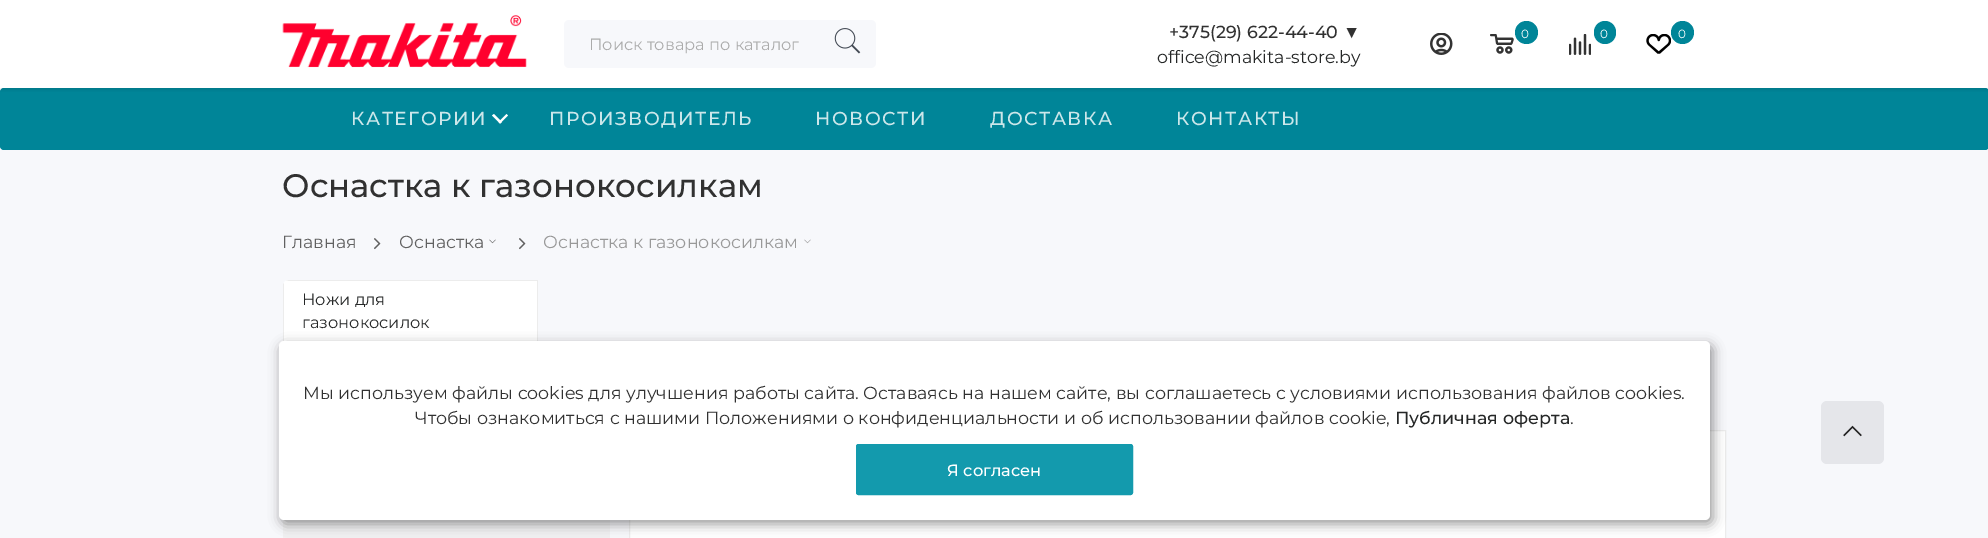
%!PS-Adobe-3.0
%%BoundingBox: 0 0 1988 538
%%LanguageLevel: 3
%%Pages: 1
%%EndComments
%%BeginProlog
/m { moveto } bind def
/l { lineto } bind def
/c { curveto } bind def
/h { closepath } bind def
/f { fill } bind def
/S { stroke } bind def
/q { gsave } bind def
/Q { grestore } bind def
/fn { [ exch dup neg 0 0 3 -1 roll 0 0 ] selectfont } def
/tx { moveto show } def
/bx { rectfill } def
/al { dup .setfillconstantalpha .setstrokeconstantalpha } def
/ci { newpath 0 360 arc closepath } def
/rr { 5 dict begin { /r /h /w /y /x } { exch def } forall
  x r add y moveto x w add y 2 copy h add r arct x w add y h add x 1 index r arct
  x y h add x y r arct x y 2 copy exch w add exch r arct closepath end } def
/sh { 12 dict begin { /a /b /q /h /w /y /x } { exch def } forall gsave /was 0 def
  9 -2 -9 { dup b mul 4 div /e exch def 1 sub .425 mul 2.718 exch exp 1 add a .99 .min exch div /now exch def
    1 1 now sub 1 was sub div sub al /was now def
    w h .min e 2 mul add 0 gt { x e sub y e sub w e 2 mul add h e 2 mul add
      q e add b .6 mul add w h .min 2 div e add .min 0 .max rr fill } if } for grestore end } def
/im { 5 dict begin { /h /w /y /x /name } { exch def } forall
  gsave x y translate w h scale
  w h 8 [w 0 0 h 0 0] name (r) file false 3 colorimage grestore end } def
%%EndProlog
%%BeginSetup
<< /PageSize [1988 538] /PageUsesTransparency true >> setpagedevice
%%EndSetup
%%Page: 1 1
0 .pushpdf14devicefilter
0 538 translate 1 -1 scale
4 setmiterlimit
0.969 0.973 0.984 setrgbcolor
0 0 1988 538 bx
0.945 0.945 0.949 setrgbcolor
283 525 327 13 bx
283 519 327 5 bx
0.937 setgray
283 524 327 1 bx
0 0.522 0.596 setrgbcolor
0 88 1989 62 4 rr f
0 setgray
1 5 1987 85 0 1 0.08 sh
1 setgray
0 0 1988 88 bx
(image0.raw) 282 15 245 53 im
0.969 0.973 0.984 setrgbcolor
564 20 312 48 5 rr f
/Montserrat-Regular 16.25 fn
0.671 setgray
(Поиск товара по каталог) 589 50 tx
(image1.raw) 834 28 27 26 im
/Montserrat-Medium 17.5 fn
0.192 setgray
(+375\(29\) 622-44-40) 1169 38 tx
/LiberationSans-Regular 17.5 fn
(▼) 1343 38 tx
/Montserrat-Regular 17.5 fn
0.145 0.153 0.153 setrgbcolor
(office@makita-store.by) 1157 63 tx
(image2.raw) 1430 33 23 22 im
(image3.raw) 1490 34 24 20 im
0 0.522 0.596 setrgbcolor
1526.5 32.5 11.5 ci f
/Montserrat-Regular 12 fn
1 setgray
(0) 1521 38 tx
(image4.raw) 1569 34 22 21 im
0 0.522 0.596 setrgbcolor
1594 21 22 23 11 rr f
1 setgray
(0) 1600 38 tx
(image5.raw) 1646 34 25 20 im
0 0.522 0.596 setrgbcolor
1682.5 32.5 11.5 ci f
1 setgray
(0) 1678 38 tx
/Montserrat-Medium 18.75 fn
0.8 0.906 0.918 setrgbcolor
351 125 m 1.5 0 (КАТЕГОРИИ) ashow
1 setgray
494 114 m 502 122 l 500 123.5 l 492 115.5 l h f
498.5 122 m 506.5 114 l 508 115.5 l 500 123.5 l h f
0.8 0.906 0.918 setrgbcolor
549 125 m 1.5 0 (ПРОИЗВОДИТЕЛЬ) ashow
815 125 m 1.5 0 (НОВОСТИ) ashow
990 125 m 1.5 0 (ДОСТАВКА) ashow
1176 125 m 1.5 0 (КОНТАКТЫ) ashow
/Montserrat-Medium 32.5 fn
0.192 setgray
(Оснастка к газонокосилкам) 282 197 tx
/Montserrat-Regular 17.5 fn
0.38 setgray
(Главная) 282 248 tx
(image6.raw) 374 238 7 12 im
(Оснастка) 399 248 tx
(image7.raw) 489 239 7 5 im
(image6.raw) 519 238 7 12 im
0.6 setgray
(Оснастка к газонокосилкам) 543 248 tx
(image8.raw) 804 239 7 5 im
1 setgray
289 280 m 538 280 l 538 343 l 283 343 l 283 286 l 283 282.5 285.5 280 289 280 c h f
0.925 setgray
289 280 m 286 281 l 537 281 l 537 342 l 284 342 l 284 283 l 283 284 283 285 283 286 c 283 343 l 538 343 l 538 280 l h f
/Montserrat-Regular 16.25 fn
0.145 0.153 0.153 setrgbcolor
(Ножи для) 302 305 tx
(газонокосилок) 302 328 tx
1 setgray
629.5 430.5 m 1725.5 430.5 l 1725.5 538.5 l 629.5 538.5 l h q f Q
0.925 setgray
S
0 setgray
281 345 1432 179 5 6 0.4 sh
1 setgray
279 341 1431 179 5 rr f
/Montserrat-Regular 17.5 fn
0.192 setgray
(Мы используем файлы cookies для улучшения работы сайта. Оставаясь на нашем сайте, вы соглашаетесь с условиями использования файлов cookies.) 303 399 tx
(Чтобы ознакомиться с нашими Положениями о конфиденциальности и об использовании файлов cookie,) 415 424 tx
/Montserrat-Medium 17.5 fn
0.145 0.153 0.153 setrgbcolor
(Публичная оферта) 1395 424 tx
/Montserrat-Regular 17.5 fn
0.192 setgray
(.) 1570 424 tx
0.075 0.604 0.678 setrgbcolor
856.5 444.5 276 50 2 rr q f Q
S
/Montserrat-Medium 16.25 fn
1 setgray
(Я согласен) 947 476 tx
0.898 0.902 0.918 setrgbcolor
1821 401 63 63 6 rr f
(image9.raw) 1843 425 19 12 im
.poppdf14devicefilter showpage
%%EOF
